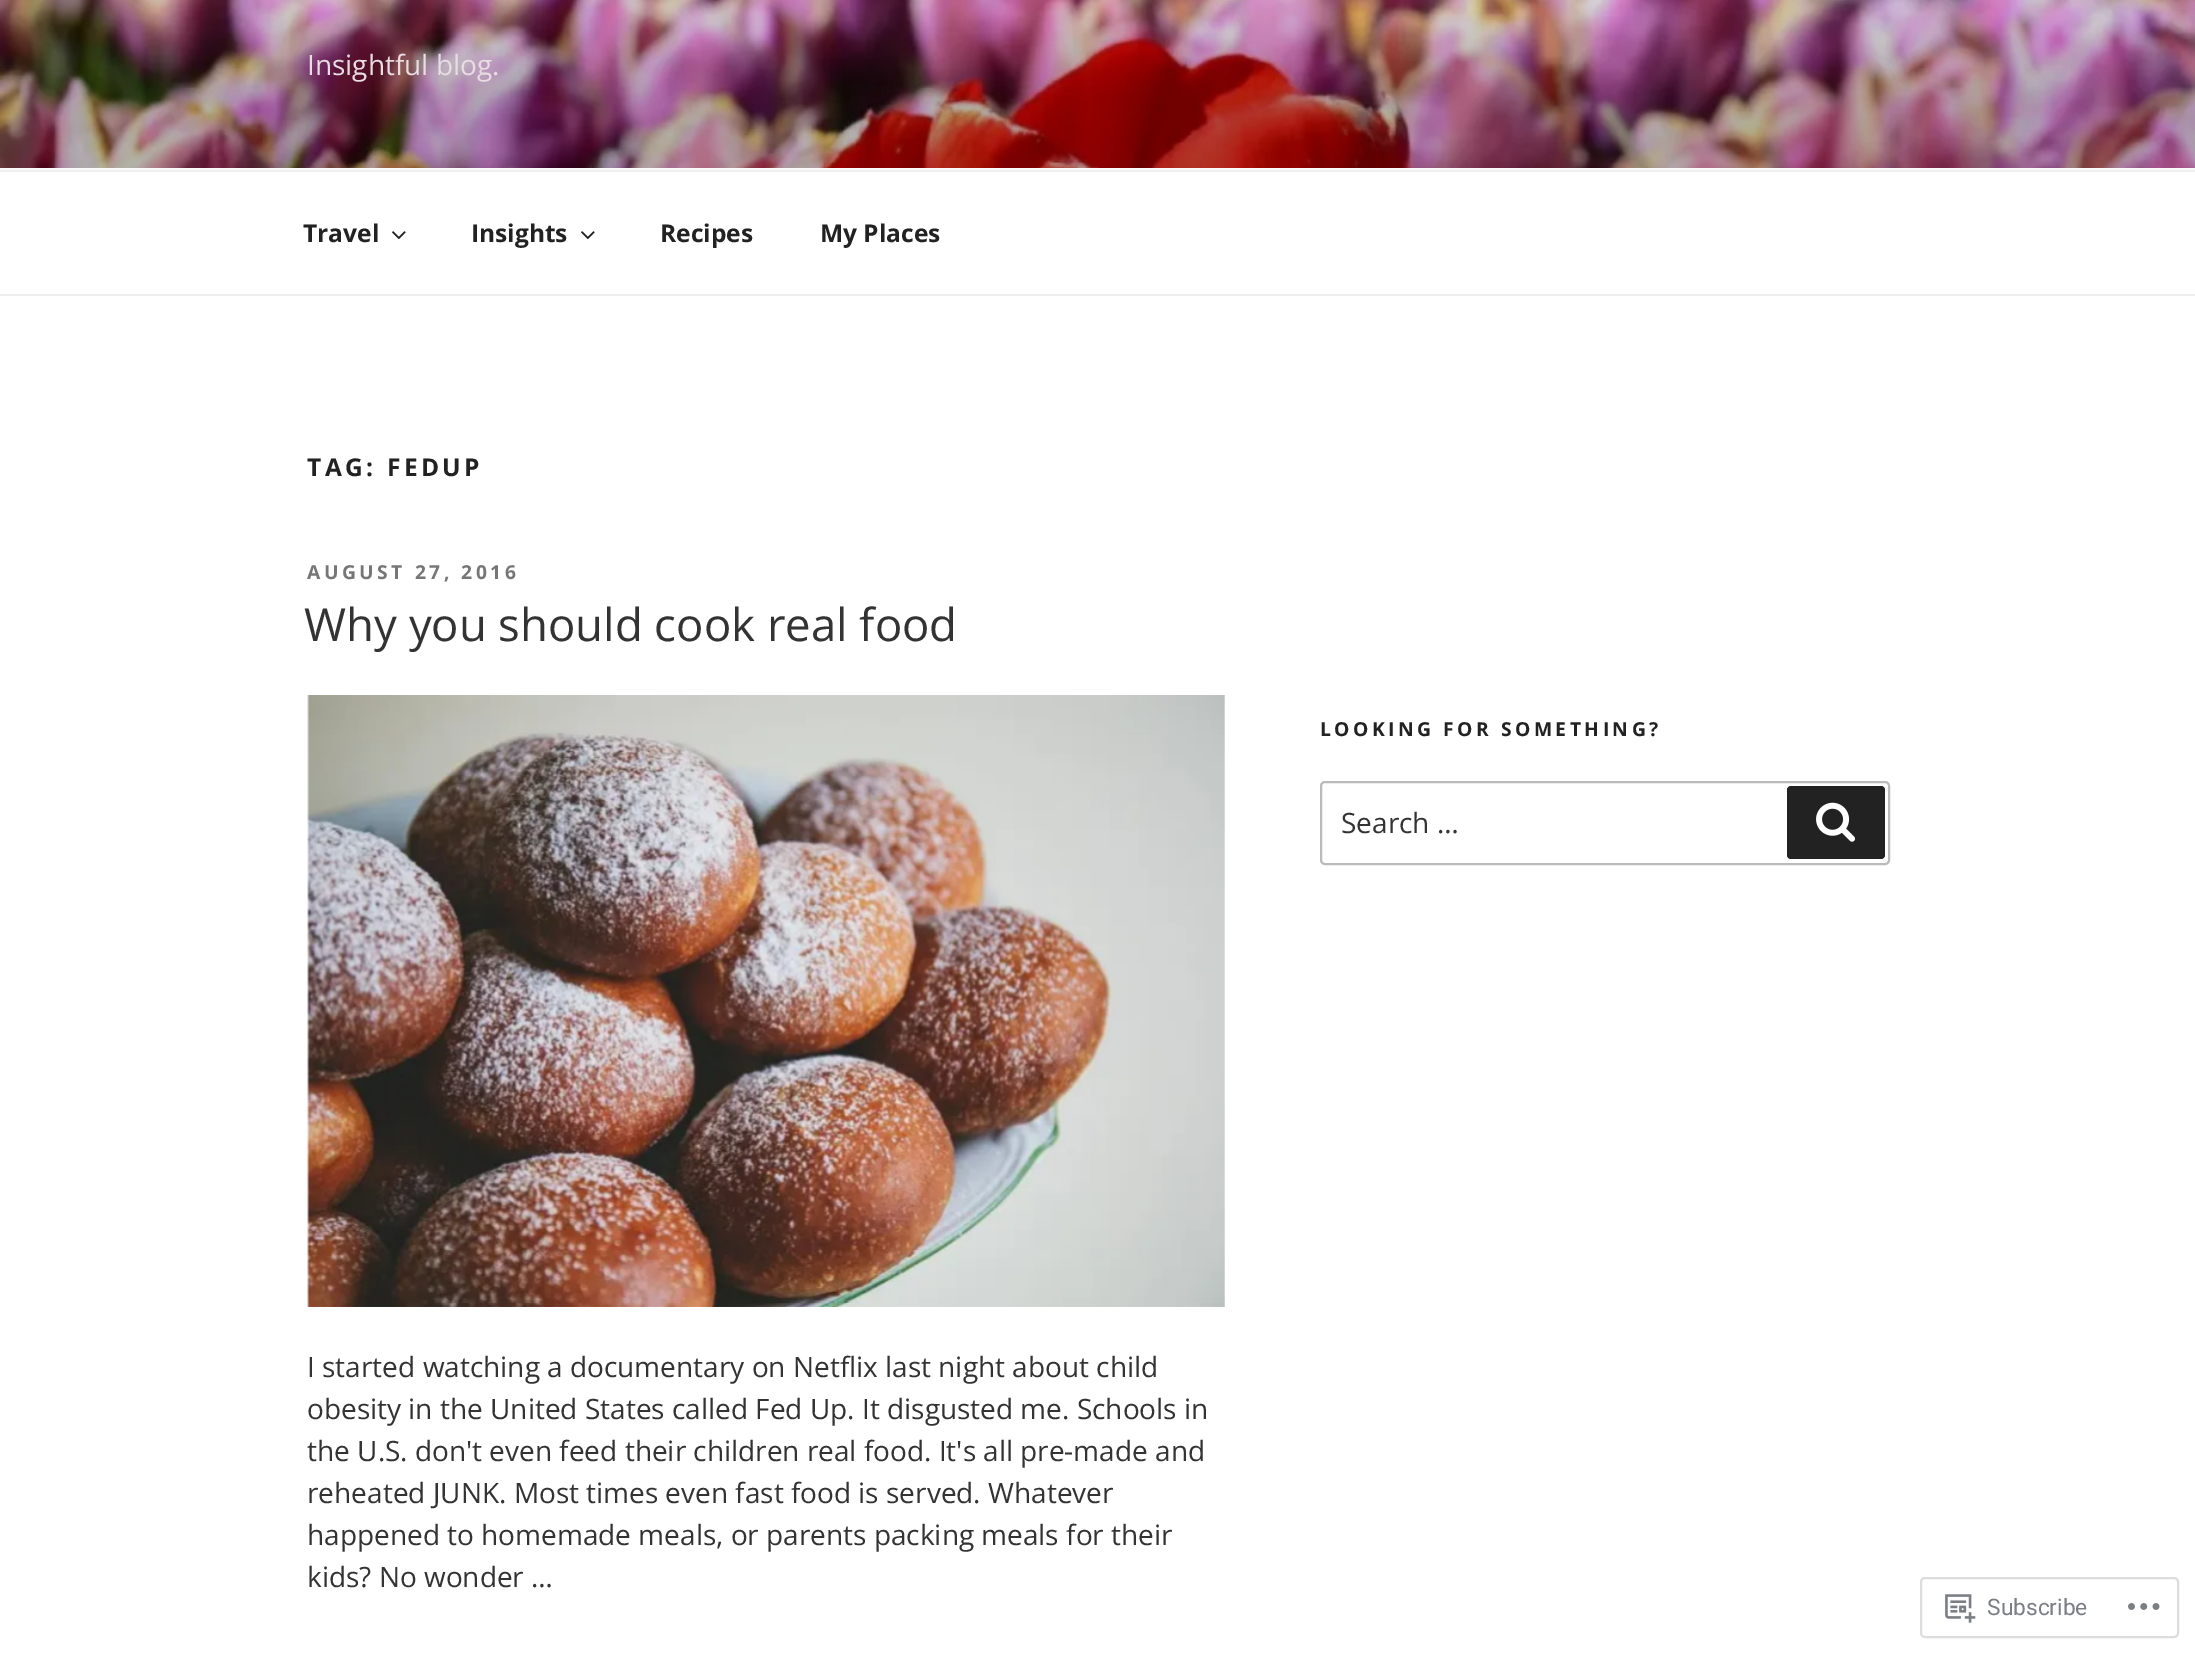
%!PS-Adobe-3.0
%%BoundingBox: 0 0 2195 1655
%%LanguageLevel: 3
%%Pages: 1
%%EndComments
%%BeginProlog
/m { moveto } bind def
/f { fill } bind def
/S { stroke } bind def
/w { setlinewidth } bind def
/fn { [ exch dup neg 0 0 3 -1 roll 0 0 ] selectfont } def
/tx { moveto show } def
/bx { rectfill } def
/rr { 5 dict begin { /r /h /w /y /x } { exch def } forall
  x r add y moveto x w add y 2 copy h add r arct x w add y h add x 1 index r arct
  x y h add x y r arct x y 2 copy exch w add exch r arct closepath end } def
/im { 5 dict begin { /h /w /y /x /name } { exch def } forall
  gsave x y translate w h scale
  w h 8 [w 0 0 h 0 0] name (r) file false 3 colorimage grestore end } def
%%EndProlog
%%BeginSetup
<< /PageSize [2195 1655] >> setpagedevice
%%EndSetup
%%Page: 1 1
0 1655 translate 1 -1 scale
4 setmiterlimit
1 setgray
0 0 2195 1655 bx
0.98 setgray
0 168 2195 2 bx
(image0.raw) 0 0 2195 168 im
/OpenSans-Regular 28 fn
0.906 0.867 0.886 setrgbcolor
(Insightful blog.) 307 75 tx
0.933 setgray
0 170 2195 2 bx
0 294 2195 2 bx
/OpenSans-Bold 24.5 fn
0.133 setgray
(Travel) 303 242 tx
(image1.raw) 392 231 14 9 im
(Insights) 471 242 tx
(image1.raw) 581 231 14 9 im
(Recipes) 660 242 tx
(My Places) 820 242 tx
307 476 m 3.5 0 (TAG: FEDUP) ashow
/OpenSans-Bold 19.25 fn
0.463 setgray
307 579 m 3.5 0 (AUGUST 27, 2016) ashow
/OpenSans-Regular 45.5 fn
0.2 setgray
(Why you should cook real food) 304 641 tx
(image2.raw) 307 695 918 612 im
/OpenSans-Regular 28 fn
(I started watching a documentary on Netflix last night about child) 307 1377 tx
(obesity in the United States called Fed Up. It disgusted me. Schools in) 307 1419 tx
(the U.S. don't even feed their children real food. It's all pre-made and) 307 1461 tx
(reheated JUNK. Most times even fast food is served. Whatever) 307 1503 tx
(happened to homemade meals, or parents packing meals for their) 307 1545 tx
(kids? No wonder …) 307 1587 tx
/OpenSans-Bold 19.25 fn
0.133 setgray
1320 736 m 3.5 0 (LOOKING FOR SOMETHING?) ashow
0.733 setgray
2 w
1321 782 568 82 4 rr S
/OpenSans-Regular 28 fn
0.2 setgray
(Search …) 1341 833 tx
0.133 setgray
1787 786 98 73 4 rr f
(image3.raw) 1816 802 39 40 im
0.867 0.867 0.875 setrgbcolor
1921 1578 257 59 4 rr S
(image4.raw) 1945 1594 31 29 im
/Roboto-Regular 22.75 fn
0.482 0.498 0.522 setrgbcolor
(Subscribe) 1987 1615 tx
(image5.raw) 2128 1603 32 7 im
showpage
%%EOF
